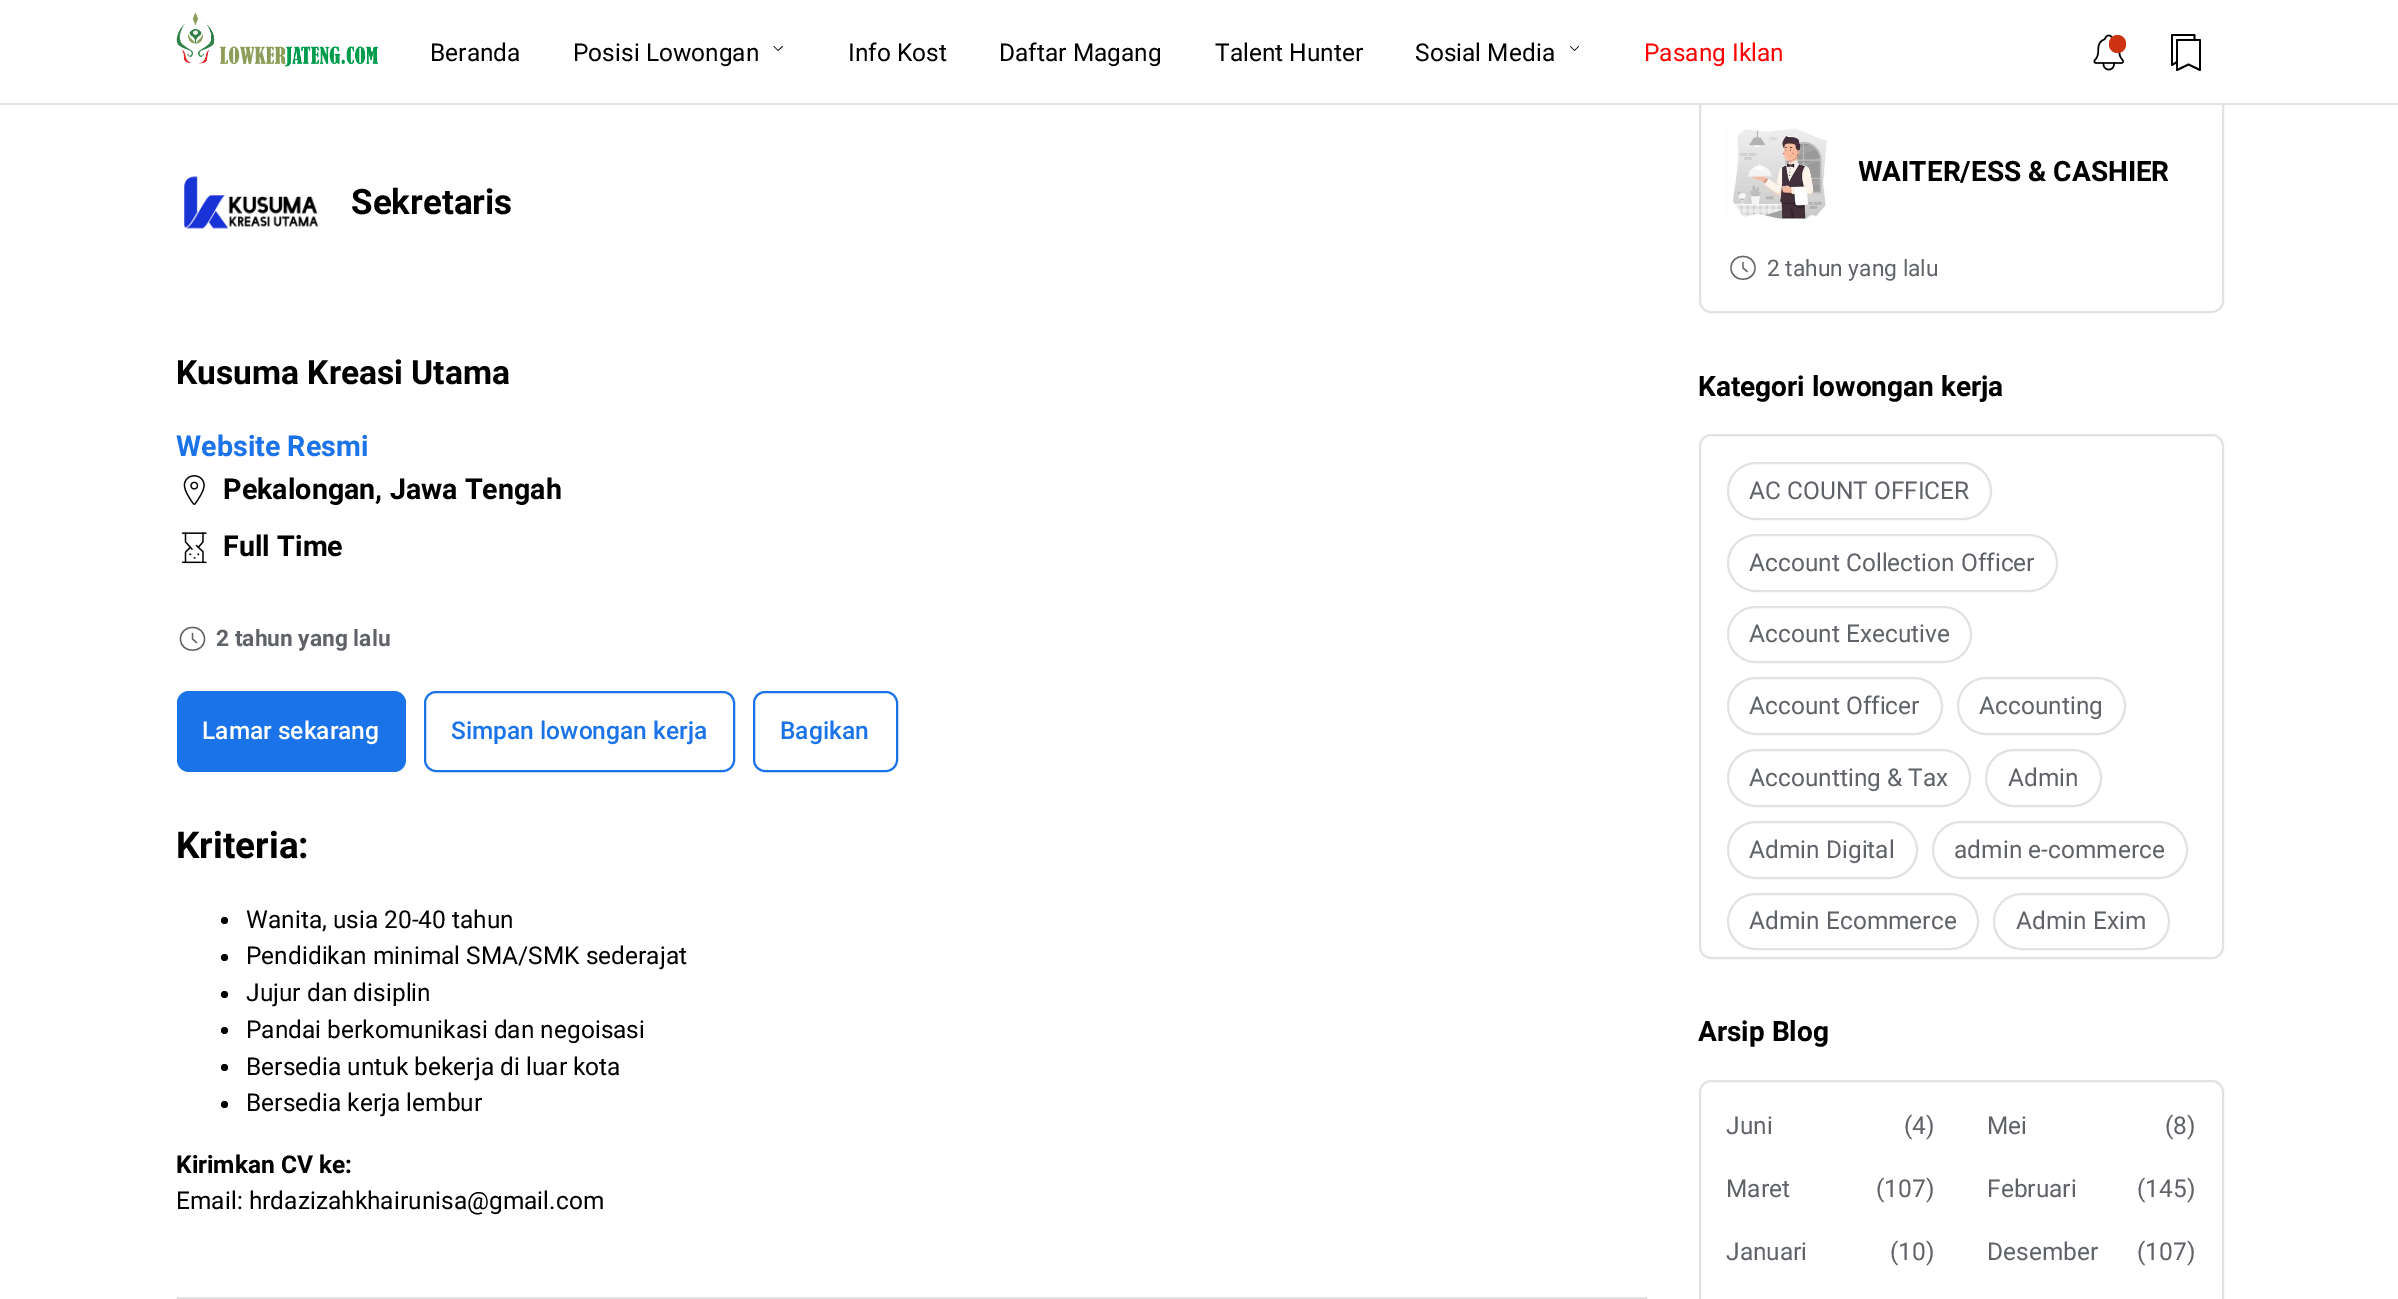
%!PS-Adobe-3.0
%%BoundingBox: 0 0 2398 1299
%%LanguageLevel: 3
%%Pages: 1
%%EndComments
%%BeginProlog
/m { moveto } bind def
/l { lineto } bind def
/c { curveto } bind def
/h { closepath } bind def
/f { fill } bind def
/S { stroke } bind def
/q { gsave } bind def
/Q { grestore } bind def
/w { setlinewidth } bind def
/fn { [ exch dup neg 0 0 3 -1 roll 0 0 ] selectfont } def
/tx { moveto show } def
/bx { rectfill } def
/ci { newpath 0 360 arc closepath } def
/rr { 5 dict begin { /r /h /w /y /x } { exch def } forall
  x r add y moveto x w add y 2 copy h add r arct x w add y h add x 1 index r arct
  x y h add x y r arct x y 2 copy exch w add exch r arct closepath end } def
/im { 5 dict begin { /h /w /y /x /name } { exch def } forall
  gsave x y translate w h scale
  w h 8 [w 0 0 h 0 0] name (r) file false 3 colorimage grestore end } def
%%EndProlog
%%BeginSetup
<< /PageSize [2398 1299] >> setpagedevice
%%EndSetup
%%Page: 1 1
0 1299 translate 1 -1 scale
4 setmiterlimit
1 setgray
0 0 2398 1299 bx
0.886 setgray
2 w
1700 94 523 218 11 rr S
1 setgray
1699 93 525 10 bx
0.886 setgray
0 103 2398 2 bx
(image0.raw) 176 12 202 55 im
/Roboto-Regular 24.5 fn
0 setgray
(Beranda) 430 61 tx
(Posisi Lowongan) 573 61 tx
0.7 w
1 setlinecap
1 setlinejoin
774 46.5 m 778 50.5 l 782.5 46.5 l S
(Info Kost) 848 61 tx
(Daftar Magang) 999 61 tx
(Talent Hunter) 1215 61 tx
(Sosial Media) 1415 61 tx
1570.5 46.5 m 1574.5 50.5 l 1578.5 46.5 l S
1 0 0 setrgbcolor
(Pasang Iklan) 1644 61 tx
(image1.raw) 2093 34 32 37 im
0.804 0.2 0.075 setrgbcolor
2109 35 17 18 8.5 rr f
0 setgray
1.8 w
2194.5 40 m 2194.5 35 l 2172 35 l 2172 65 l 2177 62 l 2177 70 m 2177 40 l 2200 40 l 2200 70 l 2188.5 64.5 l h S
0.886 setgray
177 1297 1470 2 bx
(image2.raw) 183 176 136 53 im
/Roboto-Bold 35 fn
0 setgray
(Sekretaris) 351 214 tx
/Roboto-Bold 33.5 fn
(Kusuma Kreasi Utama) 176 384 tx
/Roboto-Bold 28.7 fn
0.102 0.451 0.91 setrgbcolor
(Website Resmi) 176 456 tx
(image3.raw) 183 475 22 30 im
0 setgray
(Pekalongan, Jawa Tengah) 223 499 tx
(image4.raw) 181 532 26 32 im
(Full Time) 223 556 tx
0.373 0.388 0.408 setrgbcolor
1.3 w
192.5 633.5 m 192.5 639 l 196.5 642.5 l 204.5 639 m 204.5 654 180.5 654 180.5 639 c 180.5 623.5 204.5 623.5 204.5 639 c h S
/Roboto-Bold 22.75 fn
(2 tahun yang lalu) 216 646 tx
0.102 0.451 0.91 setrgbcolor
177 691 229 81 12 rr f
/Roboto-Medium 24.5 fn
1 setgray
(Lamar sekarang) 202 739 tx
0.102 0.451 0.91 setrgbcolor
2 w
0 setlinecap
0 setlinejoin
425 692 309 79 11 rr S
(Simpan lowongan kerja) 451 739 tx
754 692 143 79 11 rr S
(Bagikan) 780 739 tx
/Roboto-Bold 37 fn
0 setgray
(Kriteria:) 176 858 tx
224.5 920.5 3.5 ci f
/Roboto-Regular 24.5 fn
(Wanita, usia 20-40 tahun) 246 928 tx
224.5 957.5 3.5 ci f
(Pendidikan minimal SMA/SMK sederajat) 246 964 tx
224.5 994.5 3.5 ci f
(Jujur dan disiplin) 246 1001 tx
224.5 1030.5 3.5 ci f
(Pandai berkomunikasi dan negoisasi) 246 1038 tx
224.5 1067.5 3.5 ci f
(Bersedia untuk bekerja di luar kota) 246 1075 tx
224.5 1104.5 3.5 ci f
(Bersedia kerja lembur) 246 1111 tx
/Roboto-Bold 24.5 fn
(Kirimkan CV ke:) 176 1173 tx
/Roboto-Regular 24.5 fn
(Email: hrdazizahkhairunisa@gmail.com) 176 1209 tx
0.98 setgray
1727 121 105 105 12 rr f
(image5.raw) 1728 121 104 105 im
q
1859 152 309 42 rectclip
/Roboto-Bold 28 fn
0 setgray
(WAITER/ESS & CASHIER) 1858 181 tx
Q
0.373 0.388 0.408 setrgbcolor
1.3 w
1 setlinecap
1 setlinejoin
1743 262.5 m 1743 268 l 1747 271.5 l 1755 268 m 1755 283 1731 283 1731 268 c 1731 252.5 1755 252.5 1755 268 c h S
/Roboto-Regular 22.75 fn
(2 tahun yang lalu) 1767 276 tx
/Roboto-Bold 28 fn
0 setgray
(Kategori lowongan kerja) 1698 396 tx
0.886 setgray
2 w
0 setlinecap
0 setlinejoin
1700 435 523 523 11 rr S
1728 463 263 56 28 rr S
/Roboto-Regular 24.5 fn
0.373 0.388 0.408 setrgbcolor
(AC COUNT OFFICER) 1749 499 tx
0.886 setgray
1728 535 329 56 28 rr S
0.373 0.388 0.408 setrgbcolor
(Account Collection Officer) 1749 571 tx
0.886 setgray
1728 607 243 55 27.5 rr S
0.373 0.388 0.408 setrgbcolor
(Account Executive) 1749 642 tx
0.886 setgray
1728 678 214 56 28 rr S
0.373 0.388 0.408 setrgbcolor
(Account Officer) 1749 714 tx
0.886 setgray
1958 678 167 56 28 rr S
0.373 0.388 0.408 setrgbcolor
(Accounting) 1979 714 tx
0.886 setgray
1728 750 242 56 28 rr S
0.373 0.388 0.408 setrgbcolor
(Accountting & Tax) 1749 786 tx
0.886 setgray
1986 750 115 56 28 rr S
0.373 0.388 0.408 setrgbcolor
(Admin) 2008 786 tx
0.886 setgray
1728 822 189 56 28 rr S
0.373 0.388 0.408 setrgbcolor
(Admin Digital) 1749 858 tx
0.886 setgray
1933 822 254 56 28 rr S
0.373 0.388 0.408 setrgbcolor
(admin e-commerce) 1954 858 tx
0.886 setgray
1728 894 250 55 27.5 rr S
0.373 0.388 0.408 setrgbcolor
(Admin Ecommerce) 1749 929 tx
0.886 setgray
1994 894 175 55 27.5 rr S
0.373 0.388 0.408 setrgbcolor
(Admin Exim) 2016 929 tx
/Roboto-Bold 28 fn
0 setgray
(Arsip Blog) 1698 1041 tx
0.886 setgray
1700 1081 523 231 11 rr S
/Roboto-Regular 24.5 fn
0.373 0.388 0.408 setrgbcolor
(Juni) 1726 1134 tx
(\(4\)) 1904 1134 tx
(Mei) 1987 1134 tx
(\(8\)) 2165 1134 tx
(Maret) 1726 1197 tx
(\(107\)) 1876 1197 tx
(Februari) 1987 1197 tx
(\(145\)) 2137 1197 tx
(Januari) 1726 1260 tx
(\(10\)) 1890 1260 tx
(Desember) 1987 1260 tx
(\(107\)) 2137 1260 tx
showpage
%%EOF
